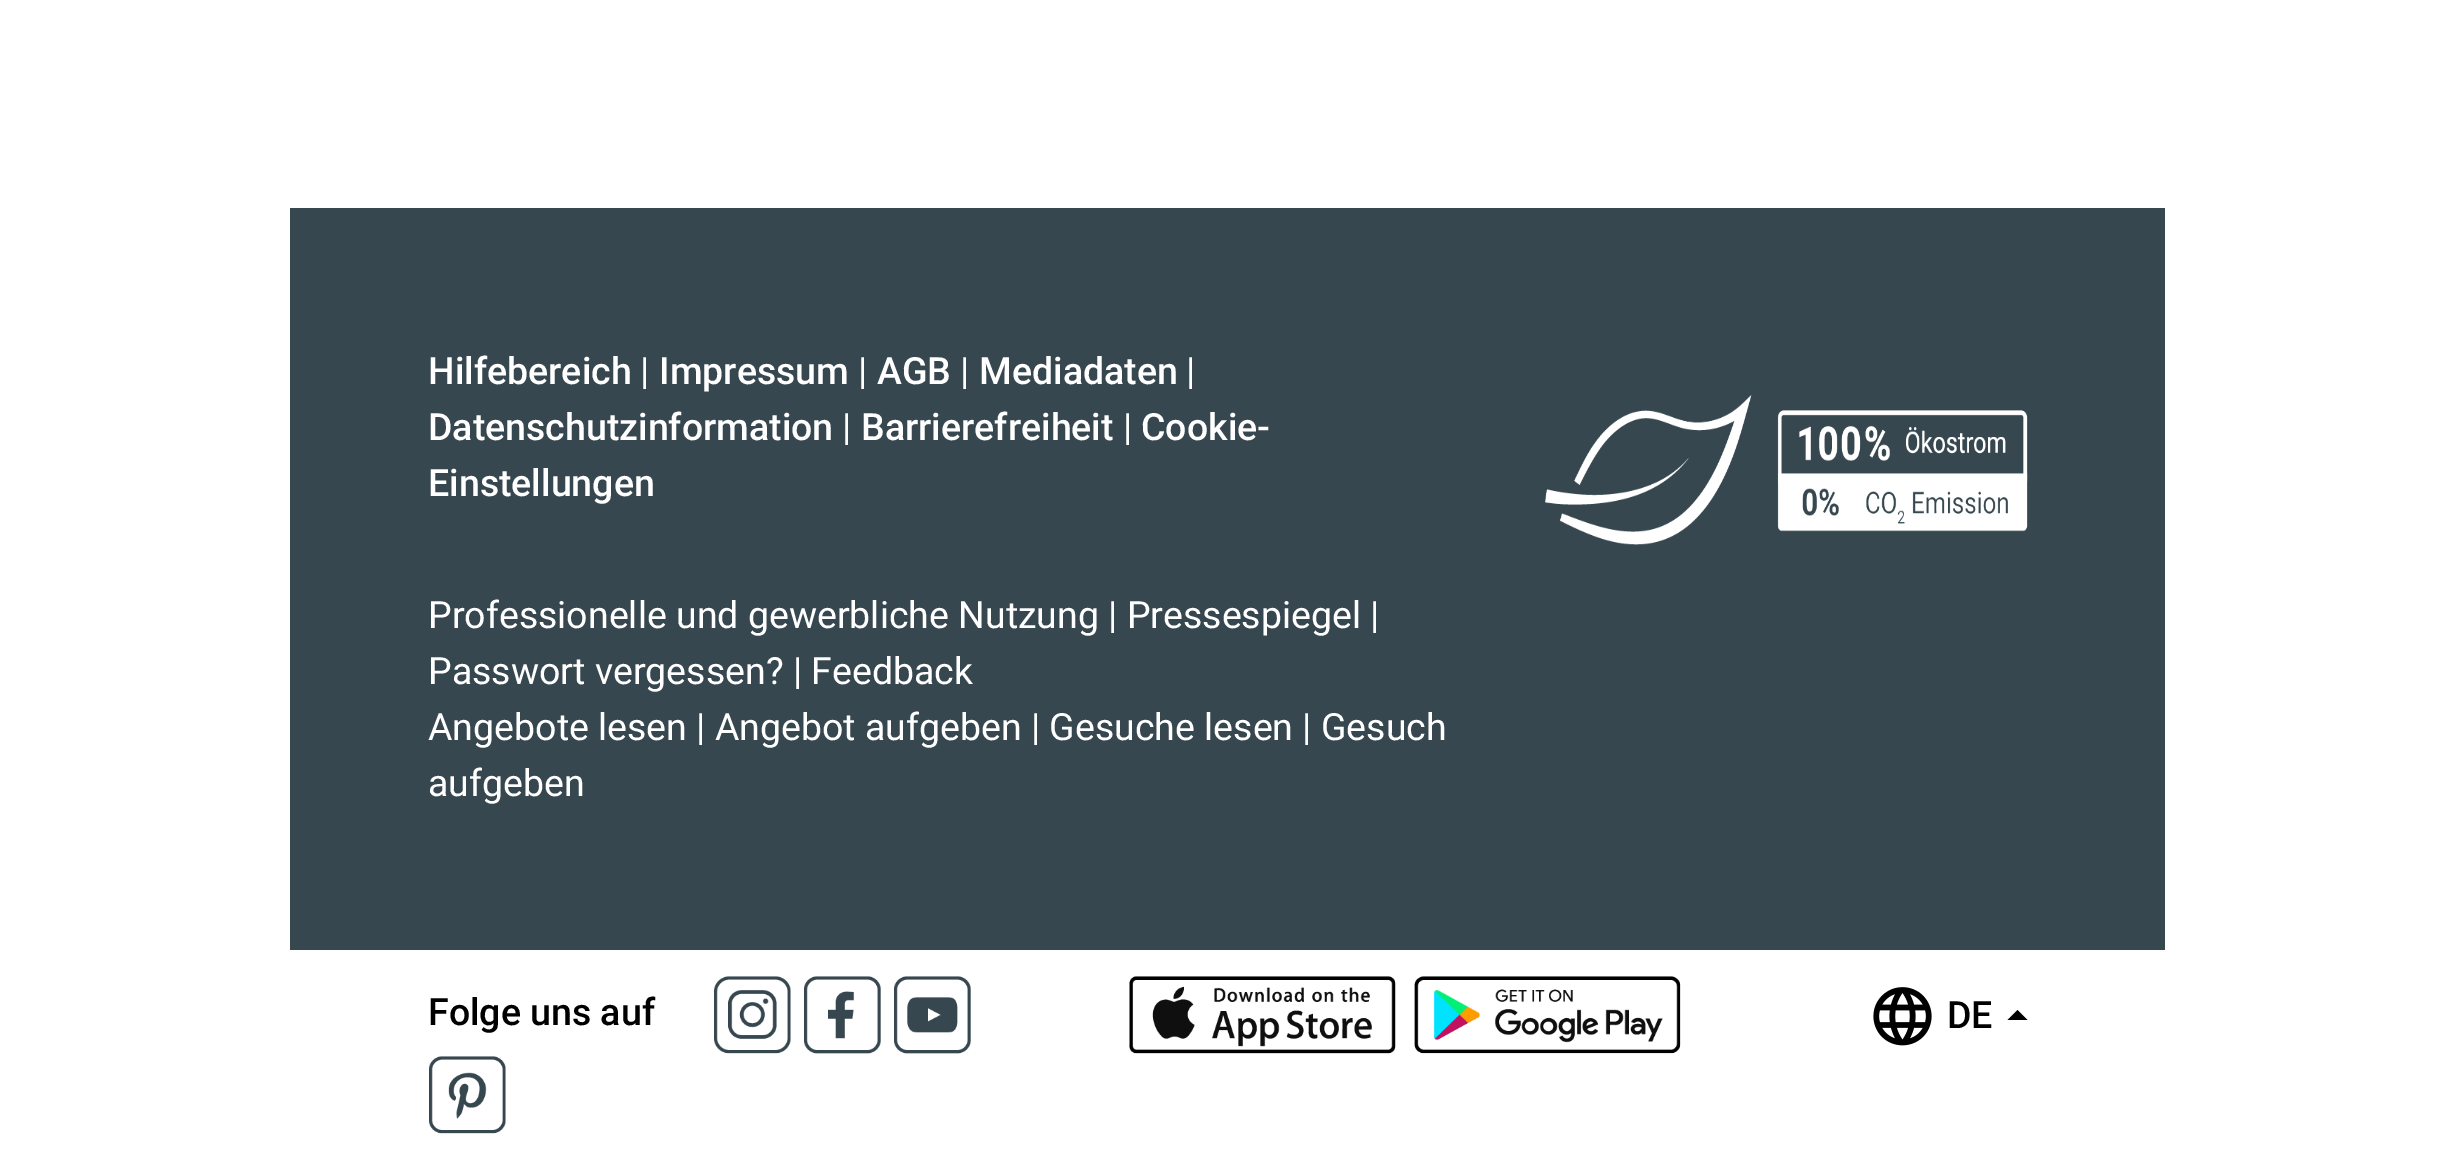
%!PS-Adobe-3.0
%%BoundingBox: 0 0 2454 1160
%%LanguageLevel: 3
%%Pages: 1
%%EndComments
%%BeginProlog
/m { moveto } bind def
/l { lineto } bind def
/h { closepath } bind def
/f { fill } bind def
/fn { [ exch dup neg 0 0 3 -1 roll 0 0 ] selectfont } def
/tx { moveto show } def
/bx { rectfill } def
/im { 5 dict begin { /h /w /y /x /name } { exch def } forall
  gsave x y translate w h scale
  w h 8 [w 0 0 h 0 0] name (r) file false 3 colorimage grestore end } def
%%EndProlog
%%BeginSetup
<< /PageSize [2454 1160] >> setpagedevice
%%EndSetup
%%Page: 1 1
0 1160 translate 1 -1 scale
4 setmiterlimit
1 setgray
0 0 2454 1160 bx
0.216 0.278 0.31 setrgbcolor
290 208 1875 742 bx
/Roboto-Medium 37.5 fn
1 setgray
(Hilfebereich) 428 384 tx
/Roboto-Regular 37.5 fn
(|) 640 384 tx
/Roboto-Medium 37.5 fn
(Impressum) 659 384 tx
/Roboto-Regular 37.5 fn
(|) 858 384 tx
/Roboto-Medium 37.5 fn
(AGB) 877 384 tx
/Roboto-Regular 37.5 fn
(|) 960 384 tx
/Roboto-Medium 37.5 fn
(Mediadaten) 979 384 tx
/Roboto-Regular 37.5 fn
(|) 1186 384 tx
/Roboto-Medium 37.5 fn
(Datenschutzinformation) 428 440 tx
/Roboto-Regular 37.5 fn
(|) 842 440 tx
/Roboto-Medium 37.5 fn
(Barrierefreiheit) 861 440 tx
/Roboto-Regular 37.5 fn
(|) 1123 440 tx
/Roboto-Medium 37.5 fn
(Cookie-) 1141 440 tx
(Einstellungen) 428 496 tx
/Roboto-Regular 37.5 fn
(Professionelle und gewerbliche Nutzung | Pressespiegel |) 428 628 tx
(Passwort vergessen? | Feedback) 428 684 tx
(Angebote lesen | Angebot aufgeben | Gesuche lesen | Gesuch) 428 740 tx
(aufgeben) 428 796 tx
(image0.raw) 1545 395 483 150 im
/Roboto-Medium 37.5 fn
0 setgray
(Folge uns auf) 428 1025 tx
(image1.raw) 714 976 77 78 im
(image2.raw) 804 976 77 78 im
(image3.raw) 894 976 77 78 im
(image4.raw) 429 1056 77 78 im
(image5.raw) 1129 976 267 78 im
(image6.raw) 1414 976 267 78 im
(image7.raw) 1873 987 59 59 im
(DE) 1947 1028 tx
2027.5 1020 m 2007.5 1020 l 2017.5 1010 l h f
showpage
%%EOF
